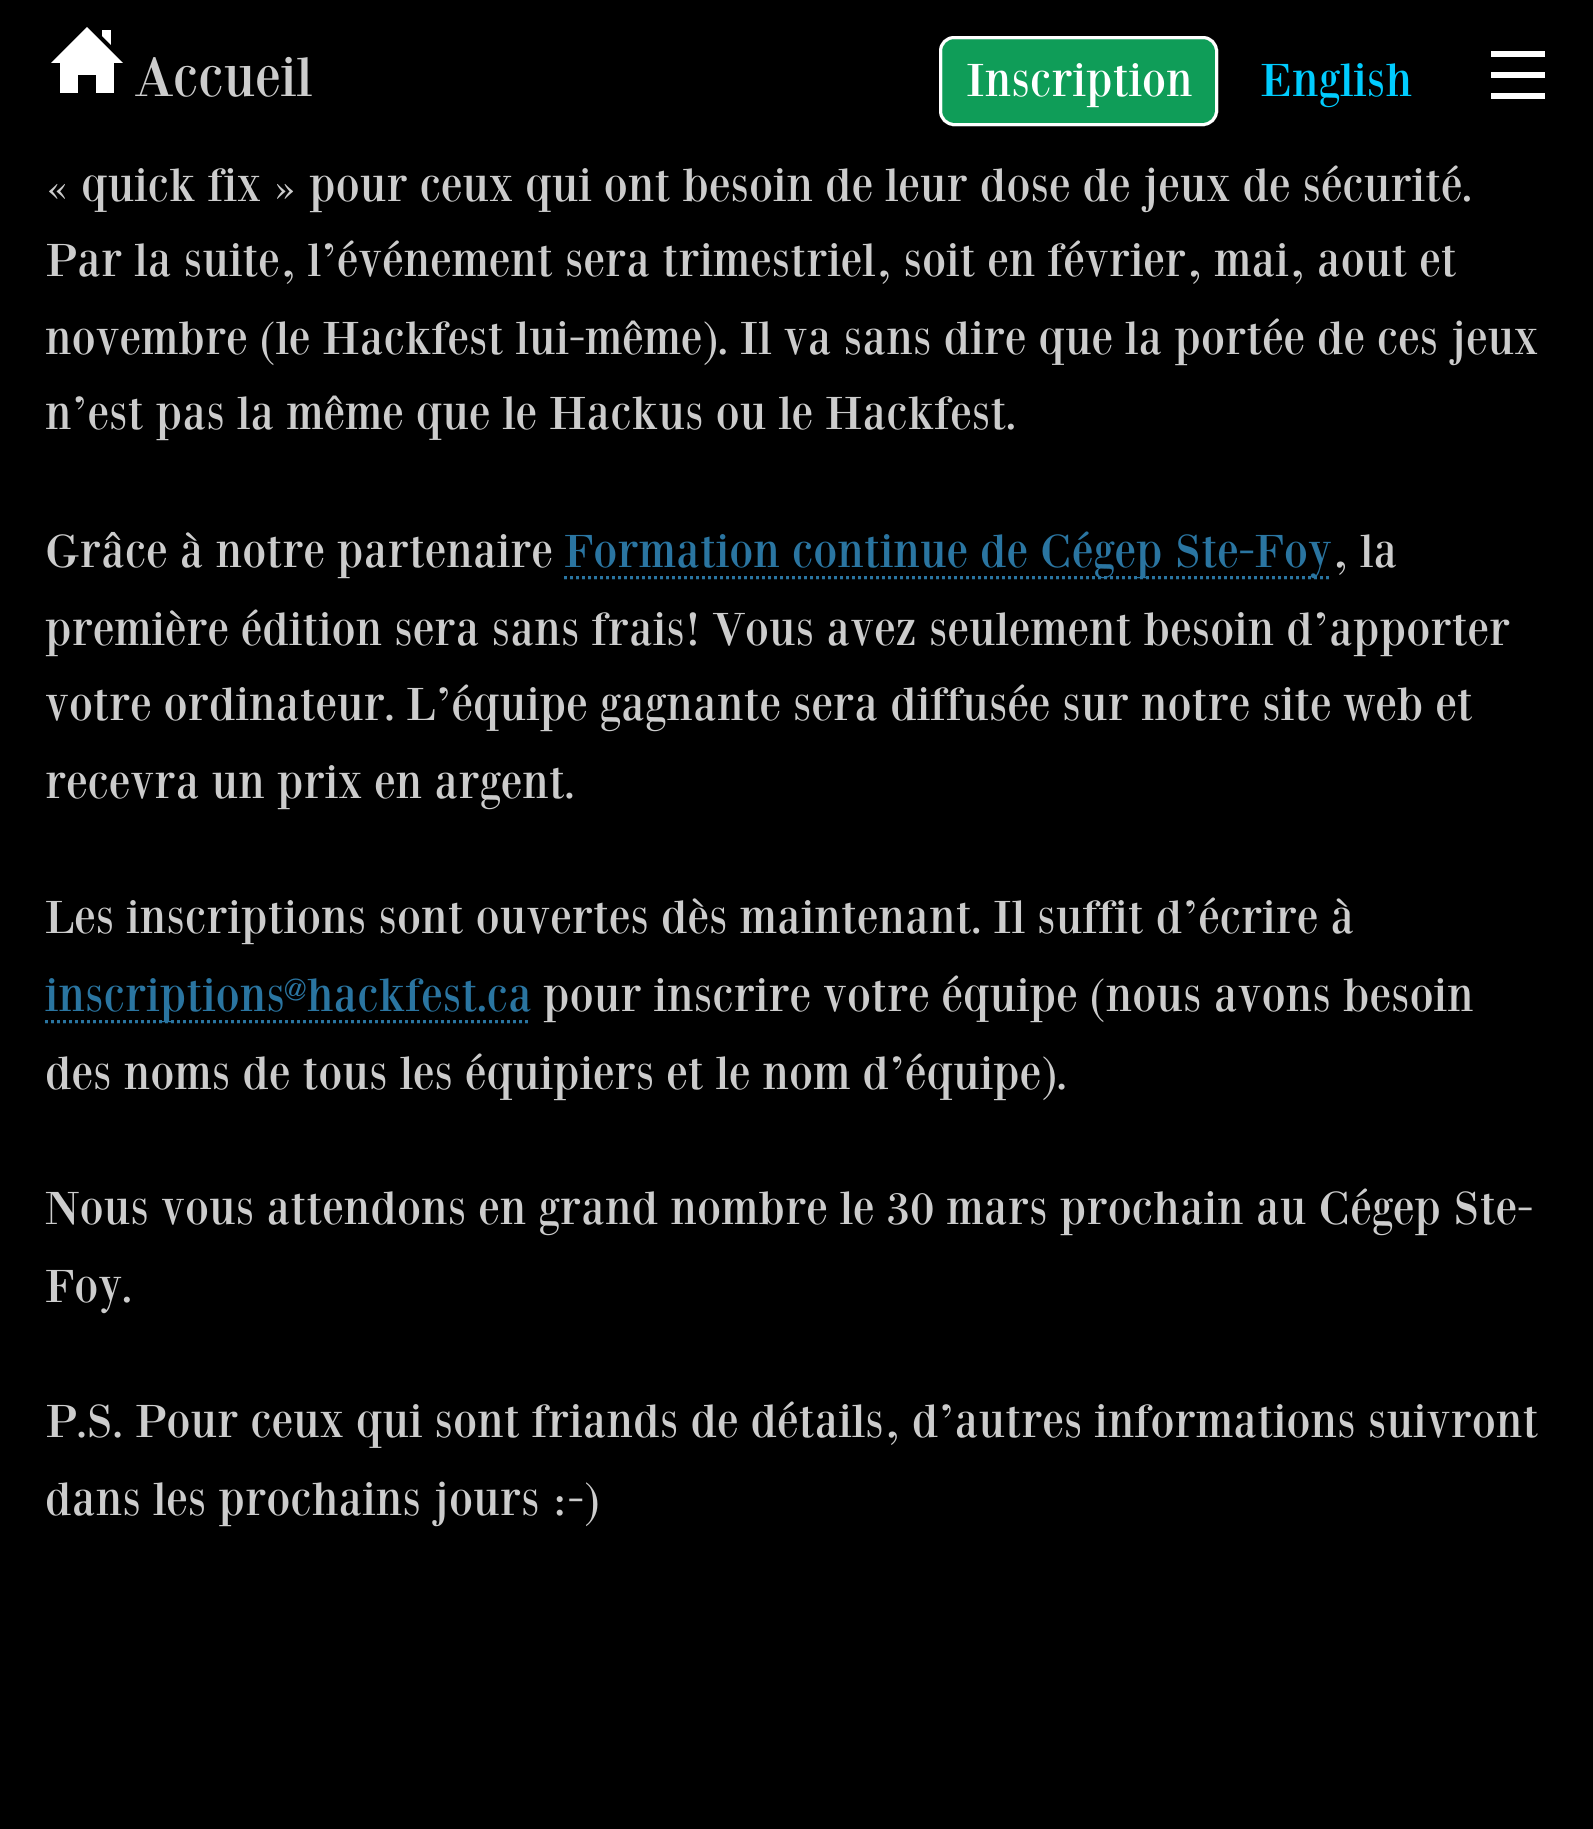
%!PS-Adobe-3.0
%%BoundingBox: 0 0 1593 1829
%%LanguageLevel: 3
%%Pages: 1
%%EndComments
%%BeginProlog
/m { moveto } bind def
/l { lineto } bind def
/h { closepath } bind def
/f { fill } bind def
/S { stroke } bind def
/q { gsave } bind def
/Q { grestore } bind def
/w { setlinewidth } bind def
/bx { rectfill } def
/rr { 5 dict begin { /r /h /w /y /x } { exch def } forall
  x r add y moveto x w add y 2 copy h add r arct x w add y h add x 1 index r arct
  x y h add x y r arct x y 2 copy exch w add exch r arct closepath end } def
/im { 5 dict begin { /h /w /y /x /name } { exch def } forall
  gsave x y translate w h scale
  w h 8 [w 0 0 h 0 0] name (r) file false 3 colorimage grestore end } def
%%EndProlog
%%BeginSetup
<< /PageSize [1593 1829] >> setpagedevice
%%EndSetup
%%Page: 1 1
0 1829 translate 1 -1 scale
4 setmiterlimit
0 setgray
0 0 1593 1829 bx
1 setgray
114 63 m 114 93 l 96 93 l 96 75 l 78 75 l 78 93 l 60 93 l 60 63 l 51 63 l 87 27 l 123 63 l h 111 45 m 111 30 l 102 30 l 102 36 l h f
(image0.raw) 135 56 177 41 im
0.059 0.616 0.345 setrgbcolor
940.5 37.5 276 87 13.5 rr q f Q
1 setgray
3 w
S
(image1.raw) 967 63 225 45 im
(image2.raw) 1261 63 151 45 im
1491 93 54 6 bx
1491 72 54 6 bx
1491 51 54 6 bx
(image3.raw) 49 165 1421 48 im
(image4.raw) 47 240 1409 44 im
(image5.raw) 46 318 1492 48 im
(image6.raw) 46 395 968 46 im
(image7.raw) 47 531 505 48 im
0.165 0.459 0.631 setrgbcolor
[3 3] 0 setdash
564 577.5 m 1332 577.5 l S
(image8.raw) 565 531 766 48 im
(image9.raw) 1336 534 60 41 im
(image10.raw) 45 609 1465 48 im
(image11.raw) 46 684 1426 48 im
(image12.raw) 46 765 527 45 im
(image13.raw) 46 897 1307 48 im
45 1021.5 m 531 1021.5 l S
(image14.raw) 45 978 486 45 im
(image15.raw) 543 975 930 48 im
(image16.raw) 47 1053 1018 48 im
(image17.raw) 45 1188 1487 48 im
(image18.raw) 46 1269 84 45 im
(image19.raw) 47 1401 1491 47 im
(image20.raw) 47 1481 551 46 im
showpage
%%EOF
